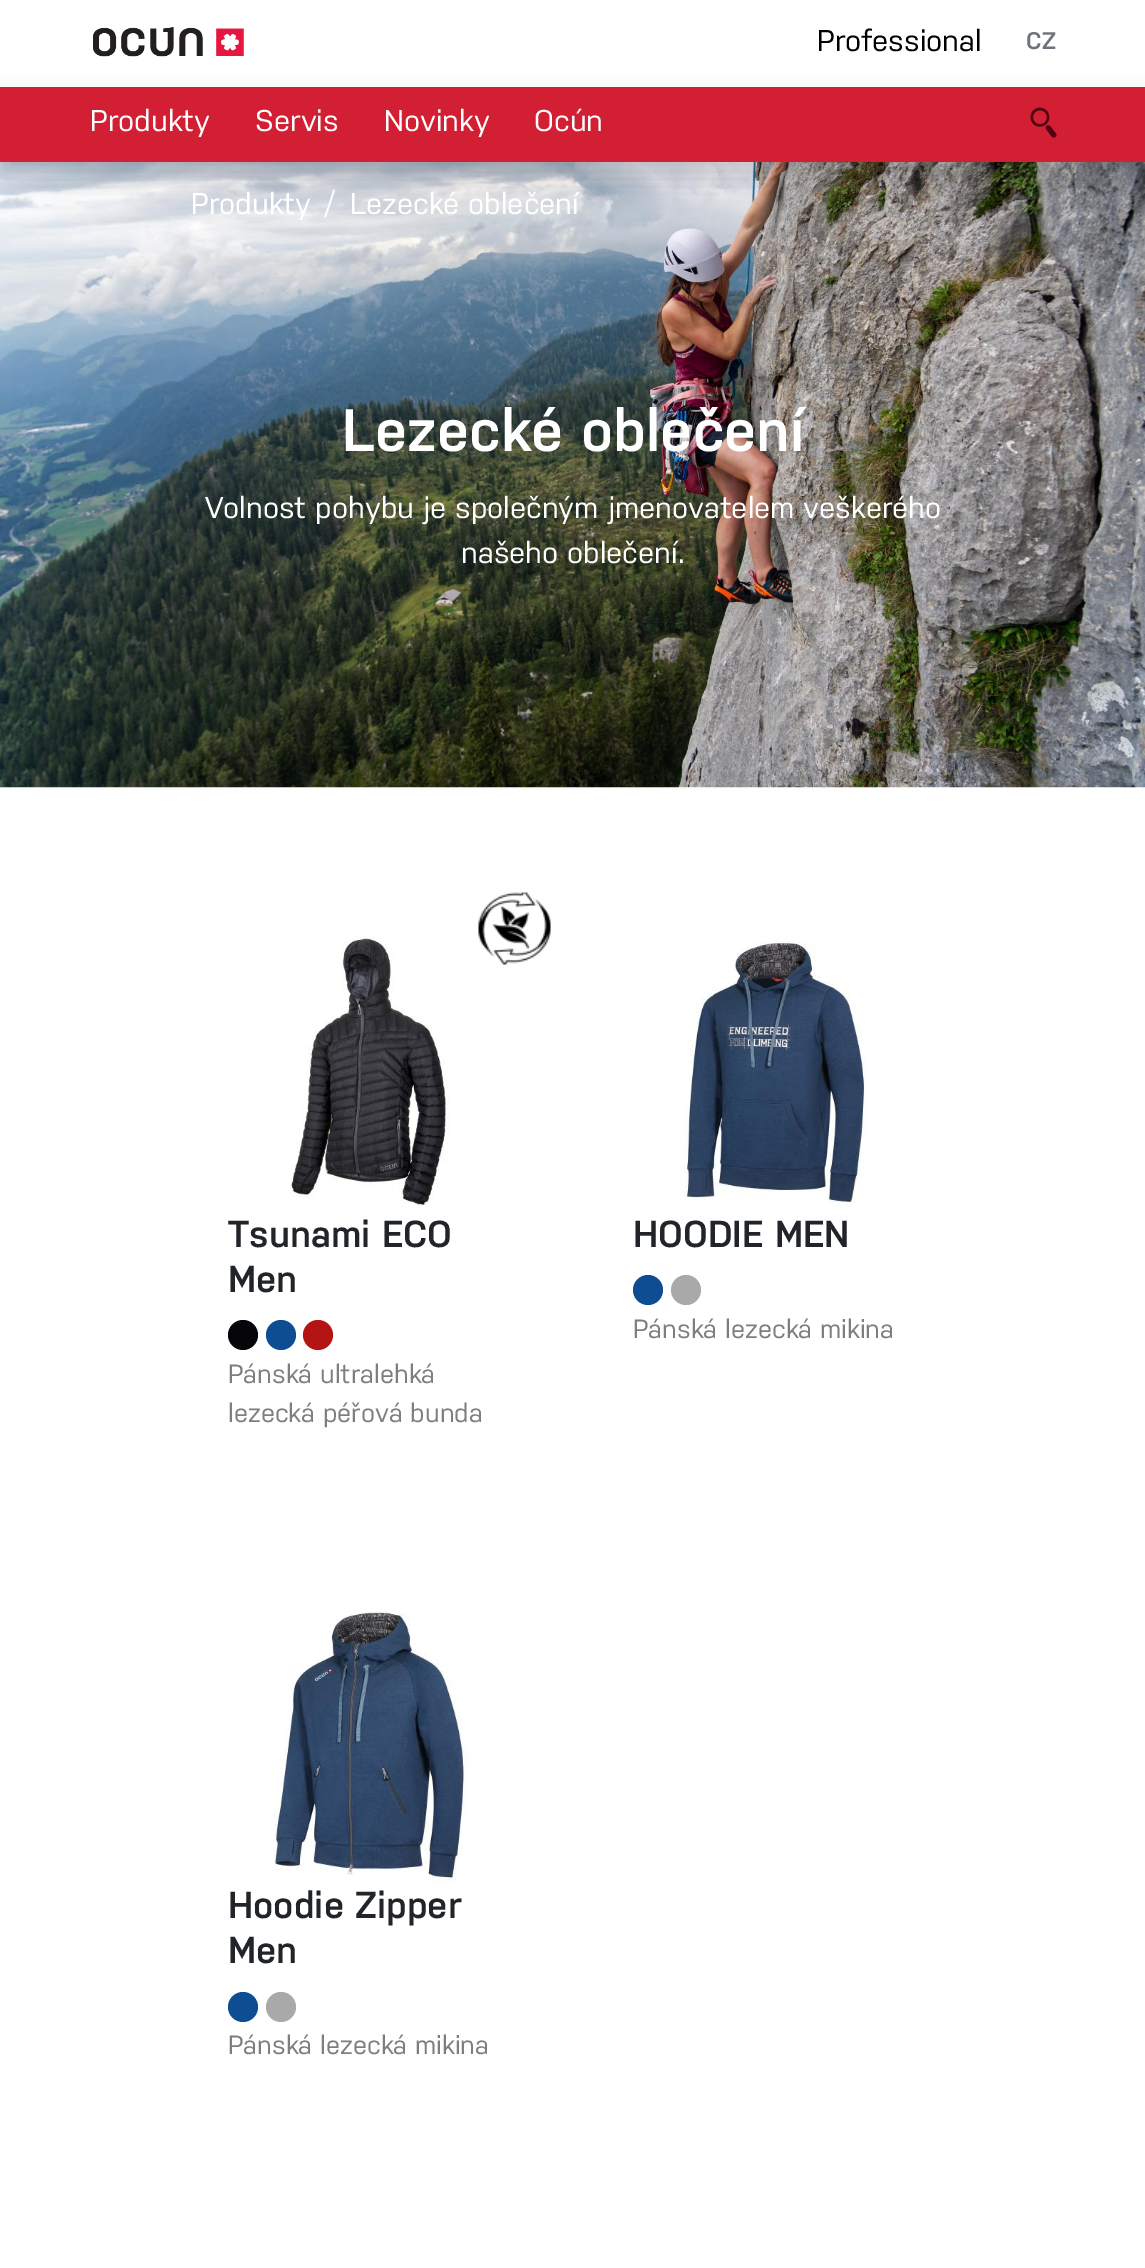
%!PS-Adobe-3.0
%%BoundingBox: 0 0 1145 2268
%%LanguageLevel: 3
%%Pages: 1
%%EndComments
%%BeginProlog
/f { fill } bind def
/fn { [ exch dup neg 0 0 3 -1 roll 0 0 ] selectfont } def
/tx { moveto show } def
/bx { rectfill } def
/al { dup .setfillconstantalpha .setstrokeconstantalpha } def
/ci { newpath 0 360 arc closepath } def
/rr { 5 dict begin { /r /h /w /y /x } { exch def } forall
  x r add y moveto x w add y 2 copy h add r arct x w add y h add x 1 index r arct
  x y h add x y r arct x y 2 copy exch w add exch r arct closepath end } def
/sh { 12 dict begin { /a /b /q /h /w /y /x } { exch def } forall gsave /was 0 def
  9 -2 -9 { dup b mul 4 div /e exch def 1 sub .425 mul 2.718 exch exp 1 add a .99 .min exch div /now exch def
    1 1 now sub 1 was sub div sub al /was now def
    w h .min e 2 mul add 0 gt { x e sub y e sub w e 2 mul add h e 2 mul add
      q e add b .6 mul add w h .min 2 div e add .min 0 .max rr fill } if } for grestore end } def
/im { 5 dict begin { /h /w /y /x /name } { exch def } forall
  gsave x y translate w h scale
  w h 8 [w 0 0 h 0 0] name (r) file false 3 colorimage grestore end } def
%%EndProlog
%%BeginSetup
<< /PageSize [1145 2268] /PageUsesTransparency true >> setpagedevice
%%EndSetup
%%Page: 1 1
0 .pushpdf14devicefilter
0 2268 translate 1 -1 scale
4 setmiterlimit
1 setgray
0 0 1145 2268 bx
(image0.raw) 93 27 151 30 im
/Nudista-Medium 30 fn
0 setgray
(Professional) 817 51 tx
/Nudista-SemiBold 24 fn
0.424 0.459 0.49 setrgbcolor
(CZ) 1026 49 tx
(image2.raw) 0 162 1145 626 im
0 setgray
0 102 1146 75 0 15 0.15 sh
0.827 0.122 0.2 setrgbcolor
0 87 1145 75 bx
/Nudista-Medium 30 fn
1 setgray
(Produkty) 90 131 tx
(Servis) 255 131 tx
(Novinky) 384 131 tx
(Ocún) 534 131 tx
(image1.raw) 1030 107 27 31 im
(Produkty) 191 214 tx
(/) 325 214 tx
(Lezecké oblečení) 350 214 tx
/Nudista-SemiBold 59.5 fn
(Lezecké oblečení) 342 451 tx
/Nudista-Medium 30 fn
(Volnost pohybu je společným jmenovatelem veškerého) 205 518 tx
(našeho oblečení.) 461 563 tx
(image3.raw) 478 892 73 73 im
(image4.raw) 291 936 159 273 im
/Nudista-SemiBold 37.5 fn
0.129 0.145 0.161 setrgbcolor
(Tsunami ECO) 228 1247 tx
(Men) 228 1292 tx
0.024 0.02 0.039 setrgbcolor
243 1335 15 ci f
0.059 0.302 0.573 setrgbcolor
281 1335 15 ci f
0.71 0.078 0.078 setrgbcolor
318 1335 15 ci f
/Nudista-Medium 26.25 fn
0.494 setgray
(Pánská ultralehká) 228 1383 tx
(lezecká péřová bunda) 228 1422 tx
(image5.raw) 679 941 188 263 im
/Nudista-SemiBold 37.5 fn
0.129 0.145 0.161 setrgbcolor
(HOODIE MEN) 633 1247 tx
0.059 0.302 0.573 setrgbcolor
648 1290 15 ci f
0.663 setgray
686 1290 15 ci f
/Nudista-Medium 26.25 fn
0.494 setgray
(Pánská lezecká mikina) 633 1338 tx
(image6.raw) 273 1611 195 273 im
/Nudista-SemiBold 37.5 fn
0.129 0.145 0.161 setrgbcolor
(Hoodie Zipper) 228 1918 tx
(Men) 228 1963 tx
0.059 0.302 0.573 setrgbcolor
243 2007 15 ci f
0.663 setgray
281 2007 15 ci f
/Nudista-Medium 26.25 fn
0.494 setgray
(Pánská lezecká mikina) 228 2054 tx
.poppdf14devicefilter showpage
%%EOF
